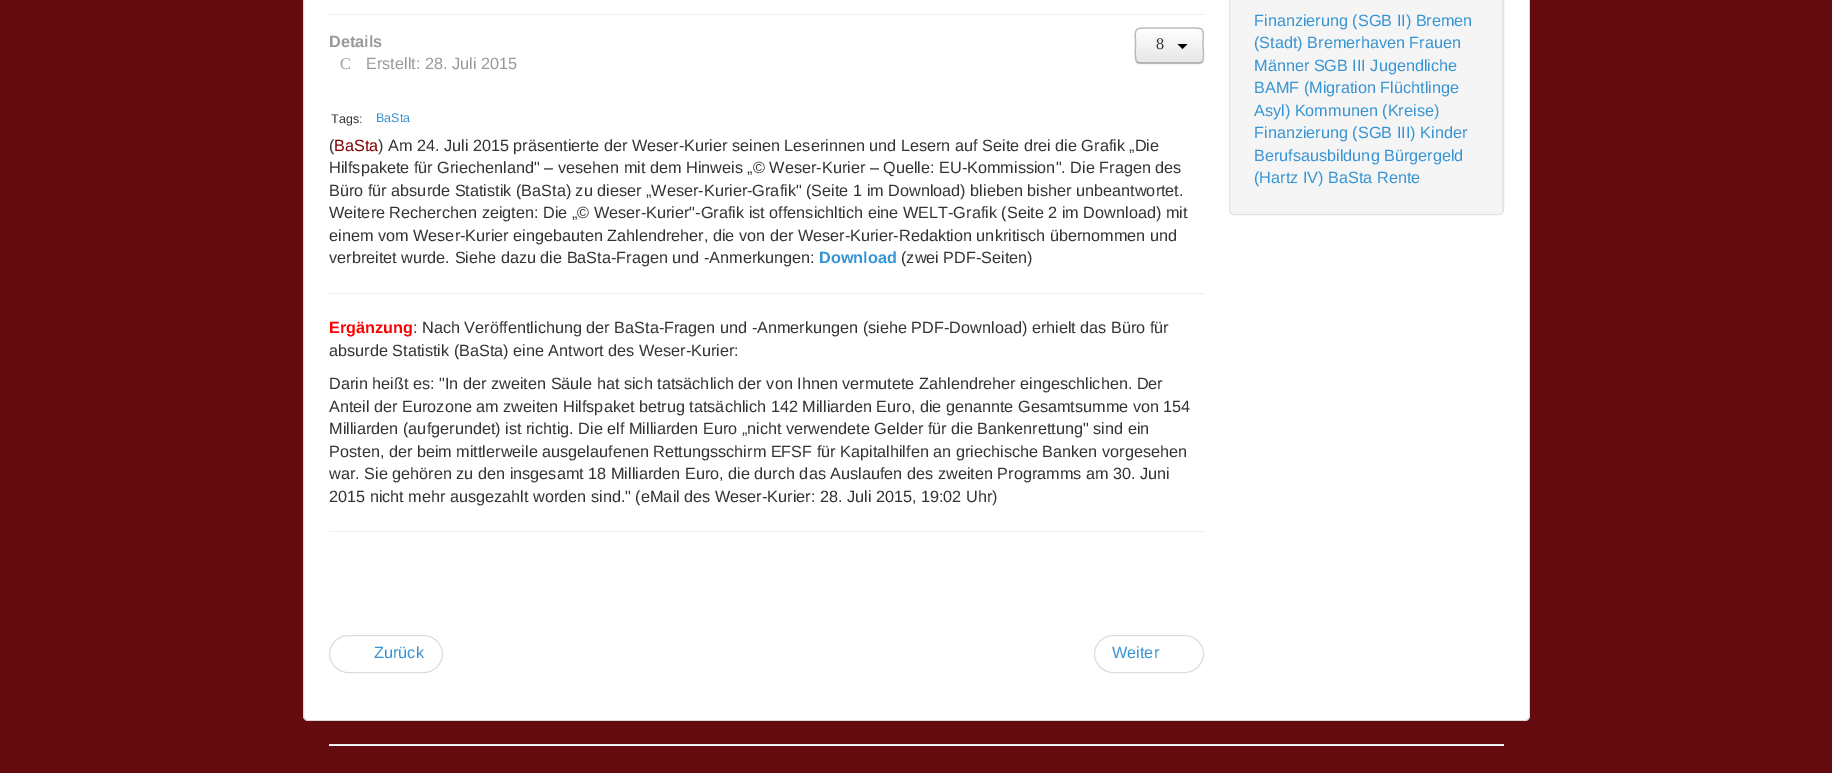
%!PS-Adobe-3.0
%%BoundingBox: 0 0 1832 773
%%LanguageLevel: 3
%%Pages: 1
%%EndComments
%%BeginProlog
/m { moveto } bind def
/l { lineto } bind def
/c { curveto } bind def
/h { closepath } bind def
/f { fill } bind def
/S { stroke } bind def
/q { gsave } bind def
/Q { grestore } bind def
/w { setlinewidth } bind def
/fn { [ exch dup neg 0 0 3 -1 roll 0 0 ] selectfont } def
/tx { moveto show } def
/bx { rectfill } def
/al { dup .setfillconstantalpha .setstrokeconstantalpha } def
/rr { 5 dict begin { /r /h /w /y /x } { exch def } forall
  x r add y moveto x w add y 2 copy h add r arct x w add y h add x 1 index r arct
  x y h add x y r arct x y 2 copy exch w add exch r arct closepath end } def
/sh { 12 dict begin { /a /b /q /h /w /y /x } { exch def } forall gsave /was 0 def
  9 -2 -9 { dup b mul 4 div /e exch def 1 sub .425 mul 2.718 exch exp 1 add a .99 .min exch div /now exch def
    1 1 now sub 1 was sub div sub al /was now def
    w h .min e 2 mul add 0 gt { x e sub y e sub w e 2 mul add h e 2 mul add
      q e add b .6 mul add w h .min 2 div e add .min 0 .max rr fill } if } for grestore end } def
%%EndProlog
%%BeginSetup
<< /PageSize [1832 773] /PageUsesTransparency true >> setpagedevice
%%EndSetup
%%Page: 1 1
0 .pushpdf14devicefilter
0 773 translate 1 -1 scale
4 setmiterlimit
0.392 0.043 0.059 setrgbcolor
0 0 1832 773 bx
1 setgray
303 -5 1227 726 5 rr f
0.15 al
0 setgray
303.5 -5.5 1226 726 4.5 rr S
1 al
0.933 setgray
329 14 875 1 bx
/LiberationSans-Bold 16.25 fn
0.6 setgray
(Details) 329 47 tx
/LiberationSerif-Regular 16.25 fn
(C) 340 69 tx
/LiberationSans-Regular 16.25 fn
(Erstellt: 28. Juli 2015) 366 69 tx
0 setgray
1135 29 69 36 5 1 0.05 sh
0.961 setgray
1135 28 69 36 5 rr f
q
1135 28 69 36 5 rr clip newpath
q 1135 29 m 1204 29 l 1204 63 l 1135 63 l h clip newpath
<< /ShadingType 2 /ColorSpace /DeviceRGB /Coords [1169 29 1169 63] /Extend [true true] /Function << /FunctionType 2 /Domain [0 1] /C0 [1 1 1] /C1 [0.902 0.902 0.902] /N 1 >> >> shfill Q
Q
0.2 al
1 setgray
1140 30 m 1199 30 l 1204 30 1202 41 1202 43 c 1202 62 l 1202 61 1203 60 1203 59 c 1203 33 l 1203 31 1201 29 1199 29 c 1140 29 l 1138 29 1136 31 1136 33 c 1136 34 l 1136 32 1138 30 1140 30 c h f
1 al
0.635 setgray
1.2 w
1202 62 m 1201 62.5 1200 63 1199 63 c 1140 63 l 1139 63 1137.5 62.5 1137 62 c S
0.733 setgray
1137 62 m 1134.5 59 1135.5 49 1135.5 45.5 c 1135.5 28 1132.5 28 1150 28 c 1189 28 l 1206.5 28 1203 28 1203 45.5 c 1203 49 1204.5 59 1202 62 c S
/LiberationSerif-Regular 16.25 fn
0.2 setgray
(8) 1156 49 tx
0 setgray
1177.5 44 m 1187.5 44 l 1182.5 49 l h f
/LiberationSans-Regular 12.5 fn
0.2 setgray
(Tags:) 331 123 tx
0.216 0.58 0.827 setrgbcolor
(BaSta) 376 122 tx
/LiberationSans-Regular 16.25 fn
0.2 setgray
(\() 329 151 tx
0.502 0 0 setrgbcolor
(BaSta) 334 151 tx
0.2 setgray
(\) Am 24. Juli 2015 präsentierte der Weser-Kurier seinen Leserinnen und Lesern auf Seite drei die Grafik „Die) 378 151 tx
(Hilfspakete für Griechenland" – vesehen mit dem Hinweis „© Weser-Kurier – Quelle: EU-Kommission". Die Fragen des) 329 173 tx
(Büro für absurde Statistik \(BaSta\) zu dieser „Weser-Kurier-Grafik" \(Seite 1 im Download\) blieben bisher unbeantwortet.) 329 196 tx
(Weitere Recherchen zeigten: Die „© Weser-Kurier"-Grafik ist offensichltich eine WELT-Grafik \(Seite 2 im Download\) mit) 329 218 tx
(einem vom Weser-Kurier eingebauten Zahlendreher, die von der Weser-Kurier-Redaktion unkritisch übernommen und) 329 241 tx
(verbreitet wurde. Siehe dazu die BaSta-Fragen und -Anmerkungen:) 329 263 tx
/LiberationSans-Bold 16.25 fn
0.216 0.58 0.827 setrgbcolor
(Download) 819 263 tx
/LiberationSans-Regular 16.25 fn
0.2 setgray
(\(zwei PDF-Seiten\)) 901 263 tx
0.933 setgray
329 293 875 1 bx
/LiberationSans-Bold 16.25 fn
1 0 0 setrgbcolor
(Ergänzung) 329 333 tx
/LiberationSans-Regular 16.25 fn
0.2 setgray
(: Nach Veröffentlichung der BaSta-Fragen und -Anmerkungen \(siehe PDF-Download\) erhielt das Büro für) 413 333 tx
(absurde Statistik \(BaSta\) eine Antwort des Weser-Kurier:) 329 356 tx
(Darin heißt es: "In der zweiten Säule hat sich tatsächlich der von Ihnen vermutete Zahlendreher eingeschlichen. Der) 329 389 tx
(Anteil der Eurozone am zweiten Hilfspaket betrug tatsächlich 142 Milliarden Euro, die genannte Gesamtsumme von 154) 329 412 tx
(Milliarden \(aufgerundet\) ist richtig. Die elf Milliarden Euro „nicht verwendete Gelder für die Bankenrettung" sind ein) 329 434 tx
(Posten, der beim mittlerweile ausgelaufenen Rettungsschirm EFSF für Kapitalhilfen an griechische Banken vorgesehen) 329 457 tx
(war. Sie gehören zu den insgesamt 18 Milliarden Euro, die durch das Auslaufen des zweiten Programms am 30. Juni) 329 479 tx
(2015 nicht mehr ausgezahlt worden sind." \(eMail des Weser-Kurier: 28. Juli 2015, 19:02 Uhr\)) 329 502 tx
0.933 setgray
329 531 875 1 bx
0.867 setgray
1 w
329.5 635.5 113 37 18.5 rr S
0.216 0.58 0.827 setrgbcolor
(Zurück) 374 658 tx
0.867 setgray
1094.5 635.5 109 37 18.5 rr S
0.216 0.58 0.827 setrgbcolor
(Weiter) 1112 658 tx
0.961 setgray
1229 -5 275 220 5 rr f
0.914 setgray
1234 -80 m 1499 -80 l 1501 -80 1502 -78 1502 -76 c 1502 211 l 1502 213 l 1502 212 1503 211 1503 210 c 1503 -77 l 1503 -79 1501 -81 1499 -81 c 1234 -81 l 1232 -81 1230 -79 1230 -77 c 1230 -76 l 1230 -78 1232 -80 1234 -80 c h f
0.89 setgray
1229.5 -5.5 274 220 4.5 rr S
0.216 0.58 0.827 setrgbcolor
(Finanzierung \(SGB II\) Bremen) 1254 26 tx
(\(Stadt\) Bremerhaven Frauen) 1254 48 tx
(Männer SGB III Jugendliche) 1254 71 tx
(BAMF \(Migration Flüchtlinge) 1254 93 tx
(Asyl\) Kommunen \(Kreise\)) 1254 116 tx
(Finanzierung \(SGB III\) Kinder) 1254 138 tx
(Berufsausbildung Bürgergeld) 1254 161 tx
(\(Hartz IV\) BaSta Rente) 1254 183 tx
0.933 setgray
329 744 1175 1 bx
1 setgray
329 745 1175 1 bx
.poppdf14devicefilter showpage
%%EOF
